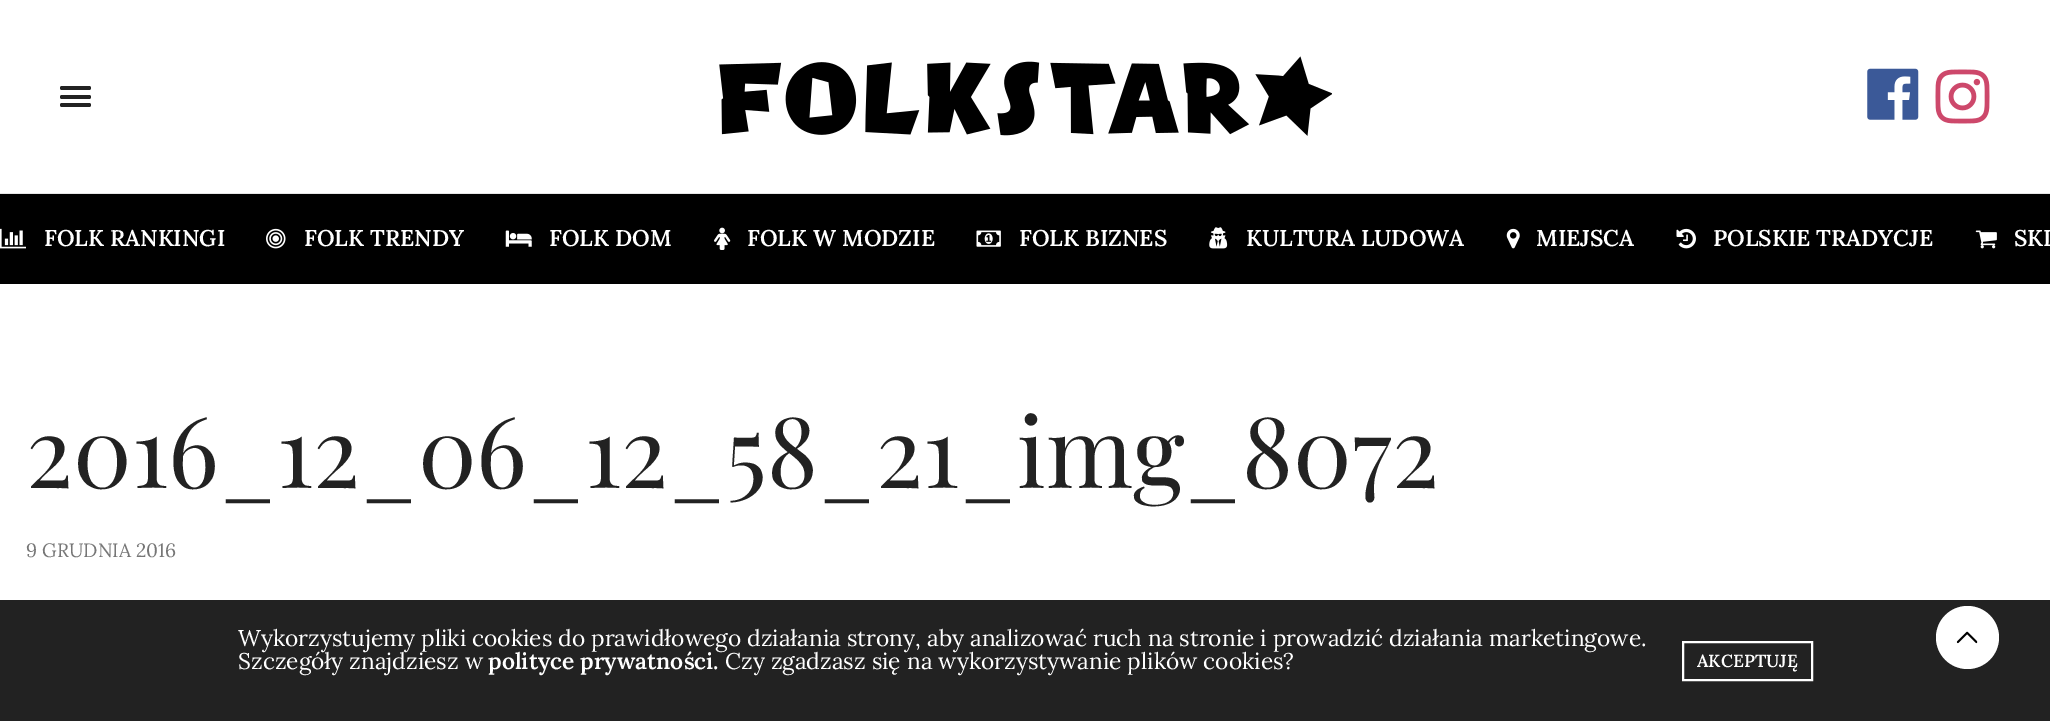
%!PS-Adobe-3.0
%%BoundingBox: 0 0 2050 721
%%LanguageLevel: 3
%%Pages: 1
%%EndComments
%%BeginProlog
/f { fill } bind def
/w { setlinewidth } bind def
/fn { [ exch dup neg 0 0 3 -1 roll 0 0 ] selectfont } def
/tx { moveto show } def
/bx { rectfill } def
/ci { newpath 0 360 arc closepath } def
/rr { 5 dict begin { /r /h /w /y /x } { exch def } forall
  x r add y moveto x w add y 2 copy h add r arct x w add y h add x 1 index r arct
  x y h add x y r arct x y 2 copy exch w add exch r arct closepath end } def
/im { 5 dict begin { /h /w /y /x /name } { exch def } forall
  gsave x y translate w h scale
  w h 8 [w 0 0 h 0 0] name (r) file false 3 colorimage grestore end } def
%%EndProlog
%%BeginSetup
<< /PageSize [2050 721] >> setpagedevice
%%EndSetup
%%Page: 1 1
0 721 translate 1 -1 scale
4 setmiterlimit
1 setgray
0 0 2050 721 bx
0.902 setgray
0 193 2050 1 bx
0.133 setgray
60 86 31 4 2 rr f
60 95 31 4 2 rr f
60 103 31 4 2 rr f
(image0.raw) 719 56 613 80 im
(image1.raw) 1867 68 52 52 im
(image2.raw) 1935 69 55 55 im
0 setgray
0 194 2050 90 bx
(image3.raw) 0 228 26 21 im
/Lora-SemiBold 22.75 fn
1 setgray
(FOLK RANKINGI) 44 246 tx
(image4.raw) 266 228 20 21 im
(FOLK TRENDY) 304 246 tx
(image5.raw) 505 230 27 17 im
(FOLK DOM) 549 246 tx
(image6.raw) 714 227 17 23 im
(FOLK W MODZIE) 747 246 tx
(image7.raw) 976 230 25 17 im
(FOLK BIZNES) 1019 246 tx
(image8.raw) 1209 227 19 22 im
(KULTURA LUDOWA) 1246 246 tx
(image9.raw) 1506 228 14 21 im
(MIEJSCA) 1536 246 tx
(image10.raw) 1676 228 20 21 im
(POLSKIE TRADYCJE) 1713 246 tx
(image11.raw) 1975 230 22 19 im
(SKL) 2014 246 tx
/PlayfairDisplay-Regular 98 fn
0.133 setgray
(2016_12_06_12_58_21_img_8072) 26 488 tx
/Lora-Regular 19.25 fn
0.463 setgray
(9 GRUDNIA 2016) 26 557 tx
0.133 setgray
0 600 2050 121 bx
/Lora-Regular 22.75 fn
1 setgray
(Wykorzystujemy pliki cookies do prawidłowego działania strony, aby analizować ruch na stronie i prowadzić działania marketingowe.) 238 646 tx
(Szczegóły znajdziesz w) 238 669 tx
/Lora-SemiBold 22.75 fn
(polityce prywatności.) 488 669 tx
/Lora-Regular 22.75 fn
(Czy zgadzasz się na wykorzystywanie plików cookies?) 725 669 tx
2 w
1683 642 129 38 rectstroke
/Lora-SemiBold 17.5 fn
(AKCEPTUJĘ) 1697 667 tx
1967.5 637.5 31.5 ci f
(image12.raw) 1956 631 22 13 im
showpage
%%EOF
